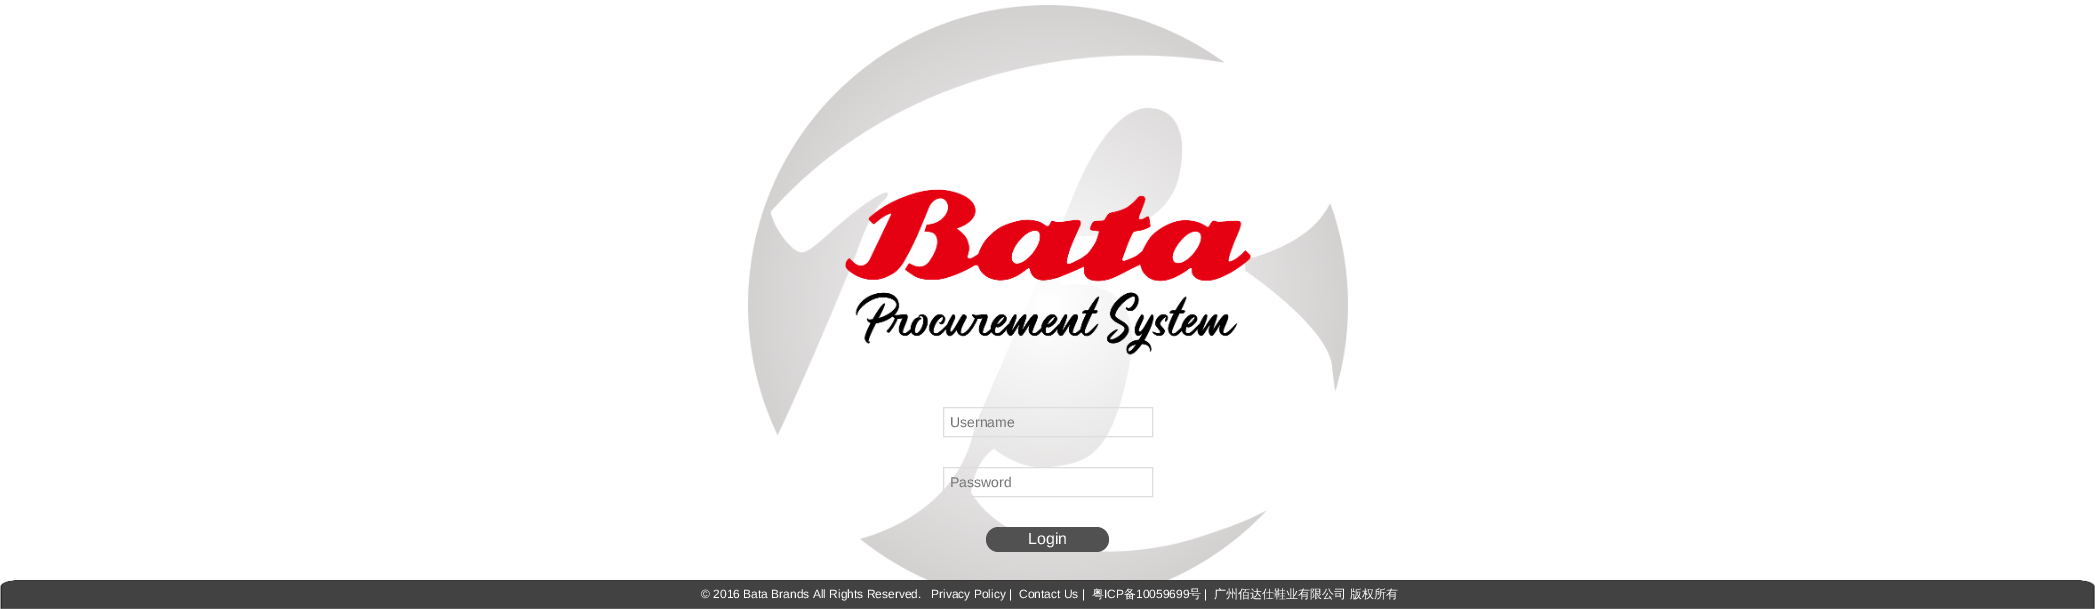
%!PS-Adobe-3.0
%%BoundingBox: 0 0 2095 609
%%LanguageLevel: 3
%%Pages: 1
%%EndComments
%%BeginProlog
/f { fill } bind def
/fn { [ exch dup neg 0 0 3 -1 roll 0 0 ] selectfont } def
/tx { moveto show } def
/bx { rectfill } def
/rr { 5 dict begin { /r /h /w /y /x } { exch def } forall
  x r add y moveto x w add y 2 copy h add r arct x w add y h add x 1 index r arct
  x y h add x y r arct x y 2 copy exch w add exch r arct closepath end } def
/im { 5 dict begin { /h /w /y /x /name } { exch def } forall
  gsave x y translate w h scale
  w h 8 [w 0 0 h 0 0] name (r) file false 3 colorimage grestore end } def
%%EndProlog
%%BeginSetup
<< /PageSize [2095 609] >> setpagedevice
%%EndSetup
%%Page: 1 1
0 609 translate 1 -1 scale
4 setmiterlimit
1 setgray
0 0 2095 609 bx
(image0.raw) 748 5 600 576 im
0.867 setgray
943.5 407.5 209 29 rectstroke
/LiberationSans-Regular 14 fn
0.459 setgray
(Username) 950 427 tx
0.867 setgray
943.5 467.5 209 29 rectstroke
0.459 setgray
(Password) 950 487 tx
0.322 0.318 0.318 setrgbcolor
986 527 123 25 12.5 rr f
/LiberationSans-Regular 16 fn
1 setgray
(Login) 1028 544 tx
(image1.raw) 0 580 2095 29 im
/LiberationSans-Regular 12 fn
(© 2016 Bata Brands All Rights Reserved.) 701 598 tx
(Privacy Policy |) 931 598 tx
(Contact Us |) 1019 598 tx
/WenQuanYiZenHei-Medium 12 fn
(粤) 1092 598 tx
/LiberationSans-Regular 12 fn
(ICP) 1104 598 tx
/WenQuanYiZenHei-Medium 12 fn
(备) 1124 598 tx
/LiberationSans-Regular 12 fn
(10059699) 1136 598 tx
/WenQuanYiZenHei-Medium 12 fn
(号) 1189 598 tx
/LiberationSans-Regular 12 fn
(|) 1204 598 tx
/WenQuanYiZenHei-Medium 12 fn
(广州佰达仕鞋业有限公司 版权所有) 1214 598 tx
showpage
%%EOF
